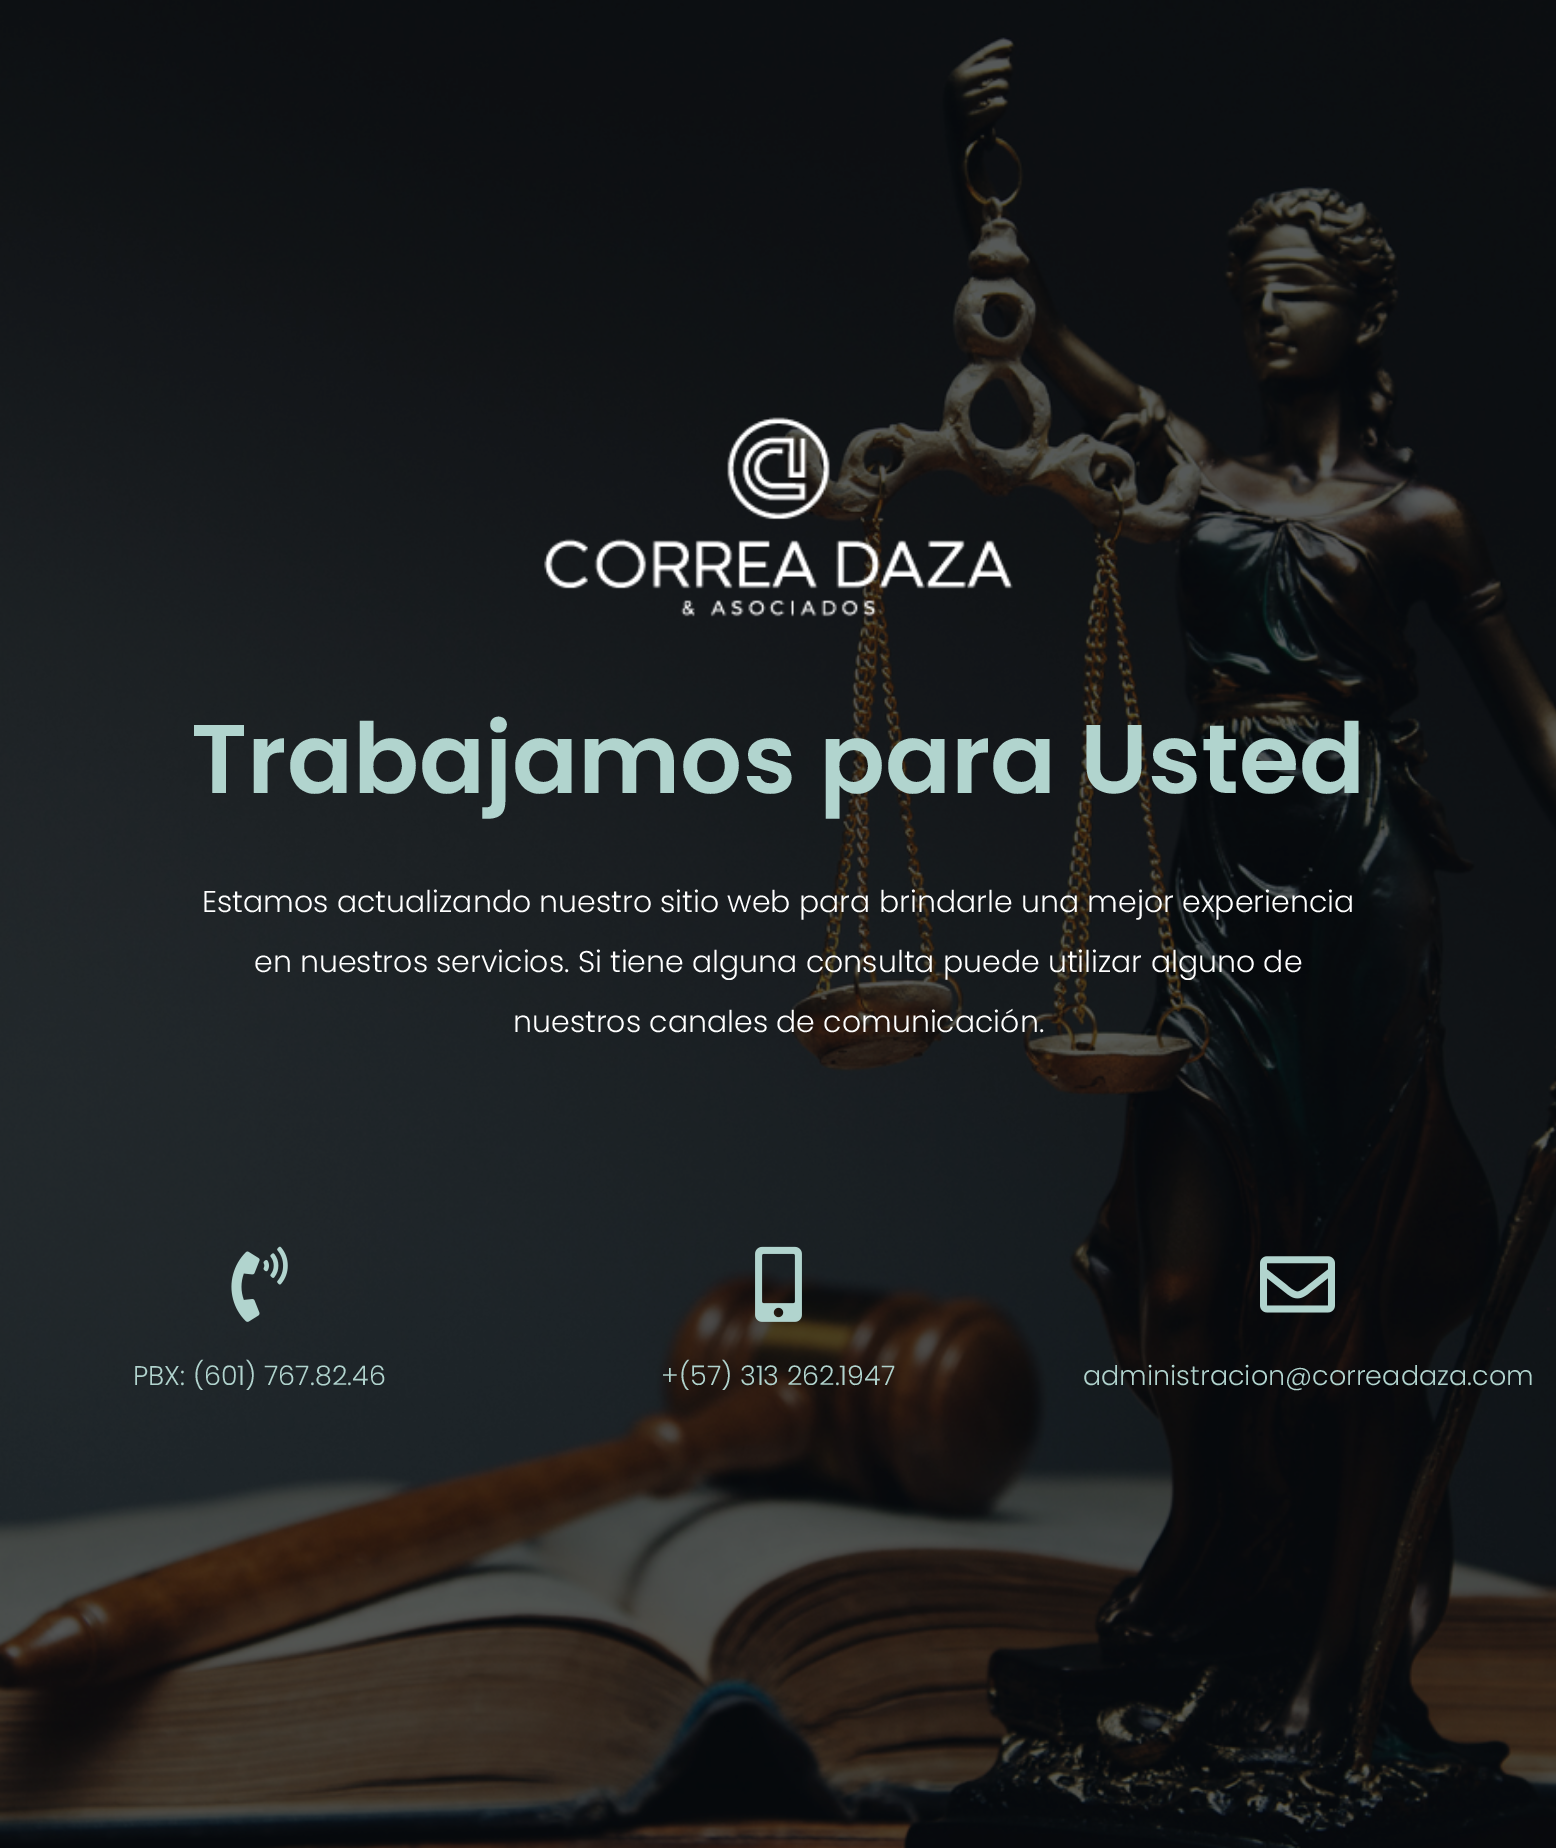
%!PS-Adobe-3.0
%%BoundingBox: 0 0 1556 1848
%%LanguageLevel: 3
%%Pages: 1
%%EndComments
%%BeginProlog
/fn { [ exch dup neg 0 0 3 -1 roll 0 0 ] selectfont } def
/tx { moveto show } def
/bx { rectfill } def
/im { 5 dict begin { /h /w /y /x /name } { exch def } forall
  gsave x y translate w h scale
  w h 8 [w 0 0 h 0 0] name (r) file false 3 colorimage grestore end } def
%%EndProlog
%%BeginSetup
<< /PageSize [1556 1848] >> setpagedevice
%%EndSetup
%%Page: 1 1
0 1848 translate 1 -1 scale
4 setmiterlimit
1 setgray
0 0 1556 1848 bx
(image0.raw) 0 0 1556 1848 im
(image1.raw) 544 417 469 200 im
/Poppins-SemiBold 97.5 fn
0.694 0.831 0.808 setrgbcolor
(Trabajamos para Usted) 191 793 tx
/Poppins-Light 30 fn
1 setgray
(Estamos actualizando nuestro sitio web para brindarle una mejor experiencia) 202 912 tx
(en nuestros servicios. Si tiene alguna consulta puede utilizar alguno de) 254 972 tx
(nuestros canales de comunicación.) 513 1032 tx
(image2.raw) 231 1246 57 76 im
/Poppins-Light 27 fn
0.694 0.831 0.808 setrgbcolor
(PBX: \(601\) 767.82.46) 133 1385 tx
(image3.raw) 755 1246 47 76 im
(+\(57\) 313 262.1947) 661 1385 tx
(image4.raw) 1260 1256 75 57 im
(administracion@correadaza.com) 1083 1385 tx
showpage
%%EOF
